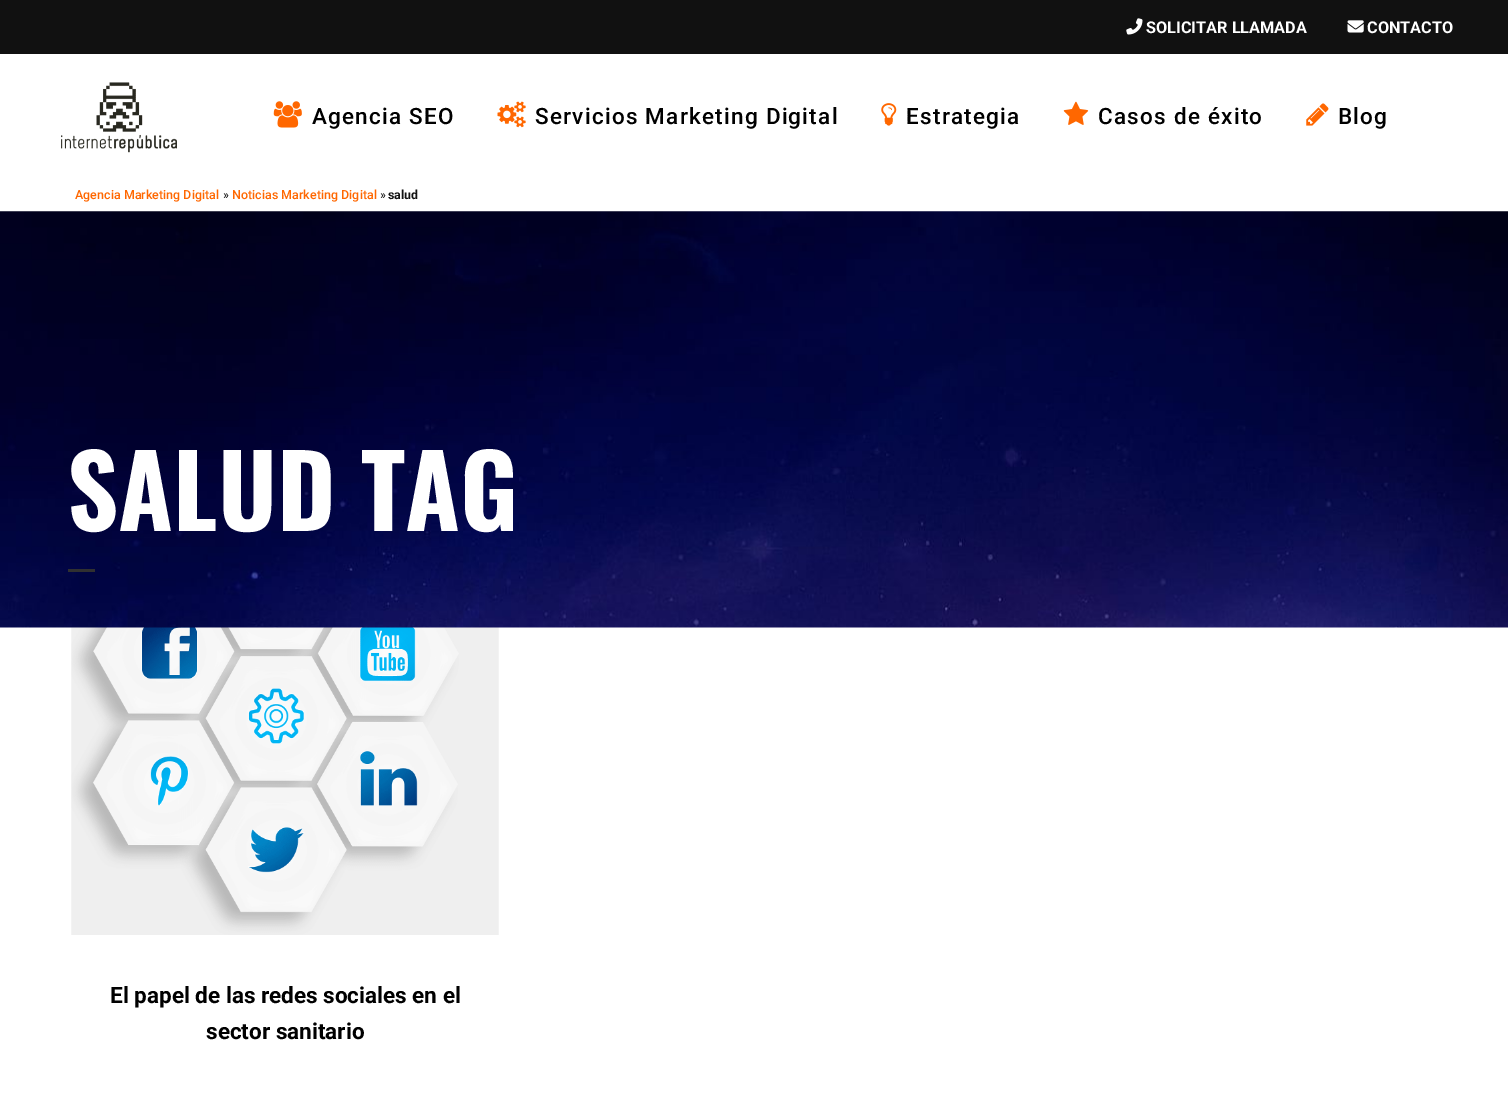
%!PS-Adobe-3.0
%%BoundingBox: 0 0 1508 1105
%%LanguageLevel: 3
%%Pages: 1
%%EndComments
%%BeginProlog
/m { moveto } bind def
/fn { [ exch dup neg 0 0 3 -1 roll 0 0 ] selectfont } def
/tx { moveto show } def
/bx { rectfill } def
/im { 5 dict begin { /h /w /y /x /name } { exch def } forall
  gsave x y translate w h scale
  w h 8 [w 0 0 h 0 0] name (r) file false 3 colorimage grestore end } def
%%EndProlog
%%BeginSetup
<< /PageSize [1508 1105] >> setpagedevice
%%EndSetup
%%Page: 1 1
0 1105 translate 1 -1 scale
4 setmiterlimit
1 setgray
0 0 1508 1105 bx
0.067 setgray
0 0 1508 54 bx
(image0.raw) 1126 18 17 17 im
/Roboto-Bold 16.25 fn
1 setgray
(SOLICITAR LLAMADA) 1146 33 tx
(image1.raw) 1347 20 17 13 im
(CONTACTO) 1367 33 tx
(image2.raw) 61 82 116 71 im
(image3.raw) 273 101 29 27 im
/Roboto-Medium 22.5 fn
0 setgray
312 124 m 1.25 0 (Agencia SEO) ashow
(image4.raw) 497 101 29 27 im
535 124 m 1.25 0 (Servicios Marketing Digital) ashow
(image5.raw) 881 103 16 23 im
906 124 m 1.25 0 (Estrategia) ashow
(image6.raw) 1063 101 26 24 im
1098 124 m 1.25 0 (Casos de éxito) ashow
(image7.raw) 1306 103 23 23 im
1338 124 m 1.25 0 (Blog) ashow
/Roboto-Medium 12.5 fn
1 0.404 0 setrgbcolor
(Agencia Marketing Digital) 75 199 tx
/Roboto-Regular 12.5 fn
0.067 setgray
(») 223 199 tx
/Roboto-Medium 12.5 fn
1 0.404 0 setrgbcolor
(Noticias Marketing Digital) 232 199 tx
/Roboto-Regular 12.5 fn
0.067 setgray
(») 380 199 tx
/Roboto-Bold 12.5 fn
(salud) 388 199 tx
(image9.raw) 71 627 428 308 im
(image8.raw) 0 211 1508 417 im
/Oswald-Bold 100 fn
1 setgray
(SALUD TAG) 67 531 tx
0.188 setgray
68 569 27 3 bx
/Roboto-Bold 22.5 fn
0 setgray
(El papel de las redes sociales en el) 110 1003 tx
(sector sanitario) 206 1039 tx
showpage
%%EOF
